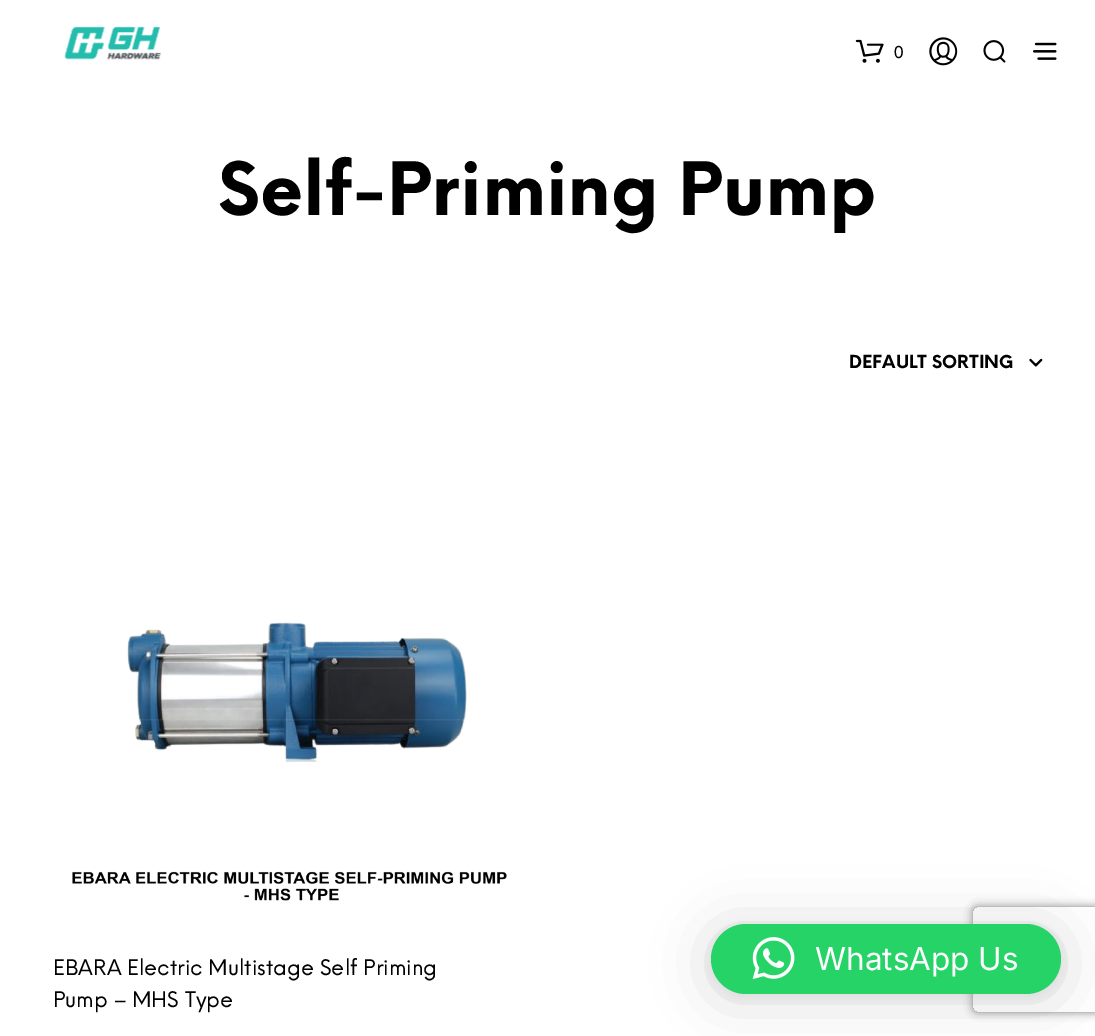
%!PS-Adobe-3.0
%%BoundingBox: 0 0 1095 1036
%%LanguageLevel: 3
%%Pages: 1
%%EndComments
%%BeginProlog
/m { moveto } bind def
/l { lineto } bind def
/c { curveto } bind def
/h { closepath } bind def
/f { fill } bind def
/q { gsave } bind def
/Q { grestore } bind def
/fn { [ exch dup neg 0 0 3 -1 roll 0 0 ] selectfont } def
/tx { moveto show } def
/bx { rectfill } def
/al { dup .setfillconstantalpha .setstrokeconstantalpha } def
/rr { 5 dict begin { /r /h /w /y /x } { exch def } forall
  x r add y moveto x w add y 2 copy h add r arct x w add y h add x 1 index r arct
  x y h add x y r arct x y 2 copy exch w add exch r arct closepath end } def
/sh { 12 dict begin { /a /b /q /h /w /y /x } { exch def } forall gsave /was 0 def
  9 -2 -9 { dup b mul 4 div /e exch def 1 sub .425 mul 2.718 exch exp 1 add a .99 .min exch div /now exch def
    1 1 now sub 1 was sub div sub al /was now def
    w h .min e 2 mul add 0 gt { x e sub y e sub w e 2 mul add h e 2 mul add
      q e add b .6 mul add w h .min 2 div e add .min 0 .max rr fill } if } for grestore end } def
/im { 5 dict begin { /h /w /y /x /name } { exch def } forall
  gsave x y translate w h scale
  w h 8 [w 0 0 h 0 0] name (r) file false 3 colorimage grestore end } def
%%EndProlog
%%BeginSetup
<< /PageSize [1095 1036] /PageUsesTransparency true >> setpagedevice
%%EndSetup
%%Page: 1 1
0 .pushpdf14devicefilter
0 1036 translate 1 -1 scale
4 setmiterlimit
1 setgray
0 0 1095 1036 bx
(image0.raw) 64 26 97 34 im
(image1.raw) 855 39 29 24 im
/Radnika-Regular 17.5 fn
0 setgray
(0) 894 58 tx
(image2.raw) 929 37 29 29 im
(image3.raw) 983 40 23 23 im
(image4.raw) 1033 42 24 18 im
/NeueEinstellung-Bold 71.75 fn
(Self-Priming Pump) 218 215 tx
/NeueEinstellung-Bold 17.5 fn
(DEFAULT SORTING) 849 368 tx
(image5.raw) 1029 358 14 9 im
(image6.raw) 72 622 435 279 im
/NeueEinstellung-Regular 21 fn
(EBARA Electric Multistage Self Priming) 53 975 tx
(Pump – MHS Type) 53 1007 tx
711 928 350 70 35 28 0.16 sh
711 926 350 70 35 5 0.06 sh
q
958 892 m 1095 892 l 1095 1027 l 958 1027 l h 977 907 m 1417 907 l 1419 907 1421 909 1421 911 c 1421 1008 l 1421 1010 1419 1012 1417 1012 c 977 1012 l 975 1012 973 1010 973 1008 c 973 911 l 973 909 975 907 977 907 c h eoclip newpath
0.502 setgray
973 907 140 105 4 4.5 1 sh
Q
0.145 0.827 0.4 setrgbcolor
711 924 350 70 35 rr f
(image7.raw) 752 937 43 43 im
/Inter-Regular 31.5 fn
1 setgray
(WhatsApp Us) 815 970 tx
.poppdf14devicefilter showpage
%%EOF
